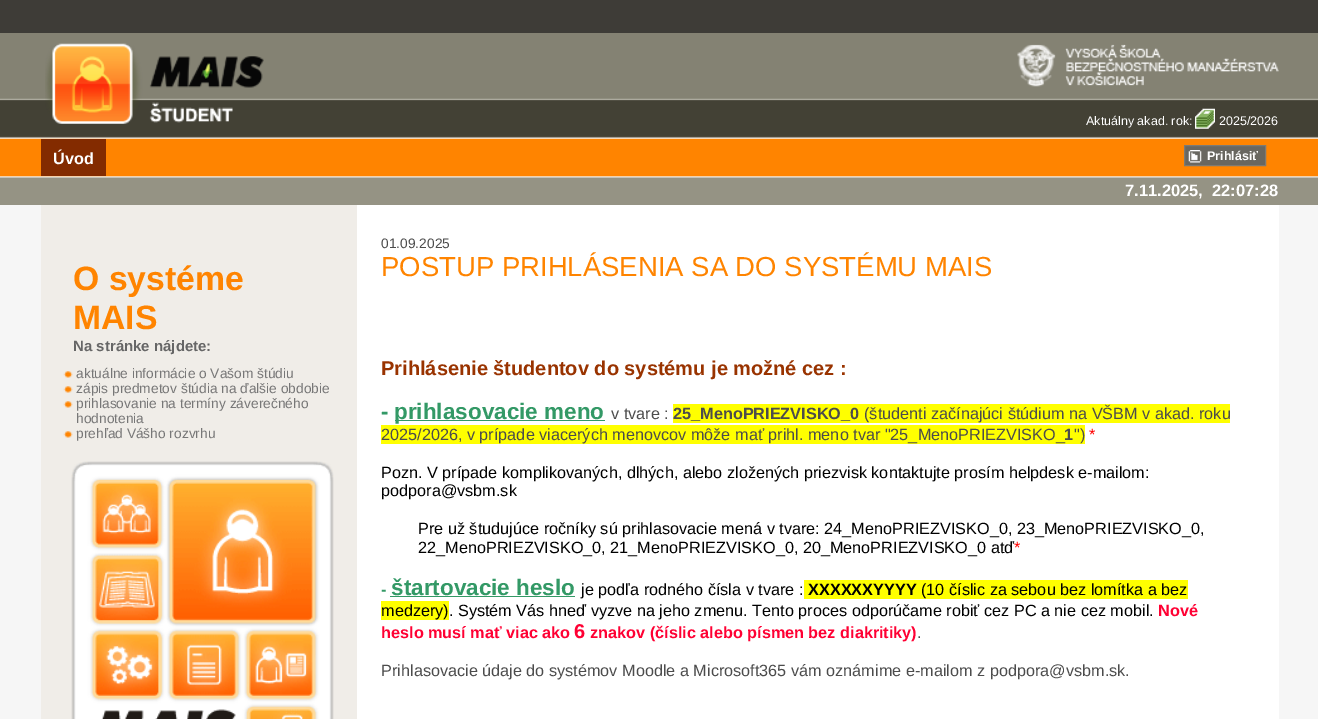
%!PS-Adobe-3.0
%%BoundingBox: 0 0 1318 719
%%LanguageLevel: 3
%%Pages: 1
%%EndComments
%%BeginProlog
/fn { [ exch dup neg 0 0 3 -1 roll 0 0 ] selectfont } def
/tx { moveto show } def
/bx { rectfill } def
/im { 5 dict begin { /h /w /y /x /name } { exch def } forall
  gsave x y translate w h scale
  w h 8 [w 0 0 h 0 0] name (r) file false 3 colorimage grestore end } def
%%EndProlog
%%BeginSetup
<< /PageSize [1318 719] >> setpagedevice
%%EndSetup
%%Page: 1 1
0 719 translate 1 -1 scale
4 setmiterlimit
0.965 setgray
0 0 1318 719 bx
(image0.raw) 0 33 1318 172 im
0.243 0.235 0.216 setrgbcolor
0 0 1318 33 bx
(image1.raw) 45 43 219 81 im
(image2.raw) 1017 44 262 43 im
/LiberationSans-Regular 12.5 fn
1 setgray
(Aktuálny akad. rok:) 1086 125 tx
(image3.raw) 1195 108 20 21 im
(2025/2026) 1219 125 tx
0.514 0.169 0 setrgbcolor
41 139 65 37 bx
/LiberationSans-Bold 16.25 fn
1 setgray
(Úvod) 53 164 tx
0.412 0.404 0.376 setrgbcolor
1185 146 80 19 bx
(image4.raw) 1188 150 14 13 im
0.486 0.478 0.455 setrgbcolor
1184.5 145.5 81 20 rectstroke
/LiberationSans-Bold 12.5 fn
1 setgray
(Prihlásiť) 1207 160 tx
/LiberationSans-Bold 16.5 fn
(7.11.2025,) 1125 196 tx
(22:07:28) 1212 196 tx
357 205 922 514 bx
0.941 0.929 0.91 setrgbcolor
41 205 316 514 bx
/LiberationSans-Bold 33.75 fn
1 0.518 0 setrgbcolor
(O systéme) 73 290 tx
(MAIS) 73 329 tx
/LiberationSans-Bold 15 fn
0.4 setgray
(Na stránke nájdete:) 73 351 tx
(image5.raw) 63 371 10 7 im
/LiberationSans-Regular 13.75 fn
0.467 setgray
(aktuálne informácie o Vašom štúdiu) 76 378 tx
(image5.raw) 63 386 10 7 im
(zápis predmetov štúdia na ďalšie obdobie) 76 393 tx
(image5.raw) 63 401 10 7 im
(prihlasovanie na termíny záverečného) 76 408 tx
(hodnotenia) 76 423 tx
(image5.raw) 63 431 10 7 im
(prehľad Vášho rozvrhu) 76 438 tx
(image6.raw) 71 461 263 258 im
0.298 setgray
(01.09.2025) 381 248 tx
/LiberationSans-Regular 27.5 fn
1 0.518 0 setrgbcolor
(POSTUP PRIHLÁSENIA SA DO SYSTÉMU MAIS) 381 276 tx
/LiberationSans-Bold 20 fn
0.6 0.2 0 setrgbcolor
(Prihlásenie študentov do systému je možné cez :) 381 375 tx
/LiberationSans-Bold 22.5 fn
0.2 0.6 0.4 setrgbcolor
(-) 381 419 tx
395 420 210 1 bx
(prihlasovacie meno) 394 419 tx
/LiberationSans-Regular 16.25 fn
0.298 setgray
(v tvare :) 611 419 tx
1 1 0 setrgbcolor
673 404 557 19 bx
/LiberationSans-Bold 16.25 fn
0.298 setgray
(25_MenoPRIEZVISKO_0) 673 419 tx
/LiberationSans-Regular 16.25 fn
(\(študenti začínajúci štúdium na VŠBM v akad. roku) 864 419 tx
1 1 0 setrgbcolor
381 425 704 19 bx
0.298 setgray
(2025/2026, v prípade viacerých menovcov môže mať prihl. meno tvar "25_MenoPRIEZVISKO_) 381 440 tx
/LiberationSans-Bold 16.25 fn
(1) 1064 440 tx
/LiberationSans-Regular 16.25 fn
("\)) 1074 440 tx
1 0 0 setrgbcolor
(*) 1089 440 tx
0 setgray
(Pozn. V prípade komplikovaných, dlhých, alebo zložených priezvisk kontaktujte prosím helpdesk e-mailom:) 381 478 tx
(podpora@vsbm.sk) 381 496 tx
(Pre už študujúce ročníky sú prihlasovacie mená v tvare: 24_MenoPRIEZVISKO_0, 23_MenoPRIEZVISKO_0,) 418 534 tx
(22_MenoPRIEZVISKO_0, 21_MenoPRIEZVISKO_0, 20_MenoPRIEZVISKO_0 atď) 418 553 tx
1 0 0 setrgbcolor
(*) 1014 553 tx
/LiberationSans-Bold 16.25 fn
0.2 0.6 0.4 setrgbcolor
(-) 381 595 tx
/LiberationSans-Bold 22.5 fn
(štartovacie heslo) 391 595 tx
/LiberationSans-Regular 16.25 fn
0 setgray
(je podľa rodného čísla v tvare :) 581 595 tx
0.2 0.6 0.4 setrgbcolor
390 596 185 1 bx
1 1 0 setrgbcolor
804 580 384 19 bx
/LiberationSans-Bold 16.25 fn
0 setgray
(XXXXXXYYYY) 808 595 tx
/LiberationSans-Regular 16.25 fn
(\(10 číslic za sebou bez lomítka a bez) 921 595 tx
1 1 0 setrgbcolor
381 601 68 19 bx
0 setgray
(medzery\). Systém Vás hneď vyzve na jeho zmenu. Tento proces odporúčame robiť cez PC a nie cez mobil.) 381 616 tx
/LiberationSans-Bold 16.25 fn
1 0 0.2 setrgbcolor
(Nové) 1158 616 tx
(heslo musí mať viac ako) 381 638 tx
/LiberationSans-Bold 20 fn
(6) 574 638 tx
/LiberationSans-Bold 16.25 fn
(znakov \(číslic alebo písmen bez diakritiky\)) 590 638 tx
/LiberationSans-Regular 16.25 fn
0.298 setgray
(.) 917 638 tx
(Prihlasovacie údaje do systémov Moodle a Microsoft365 vám oznámime e-mailom z podpora@vsbm.sk.) 381 676 tx
showpage
%%EOF
